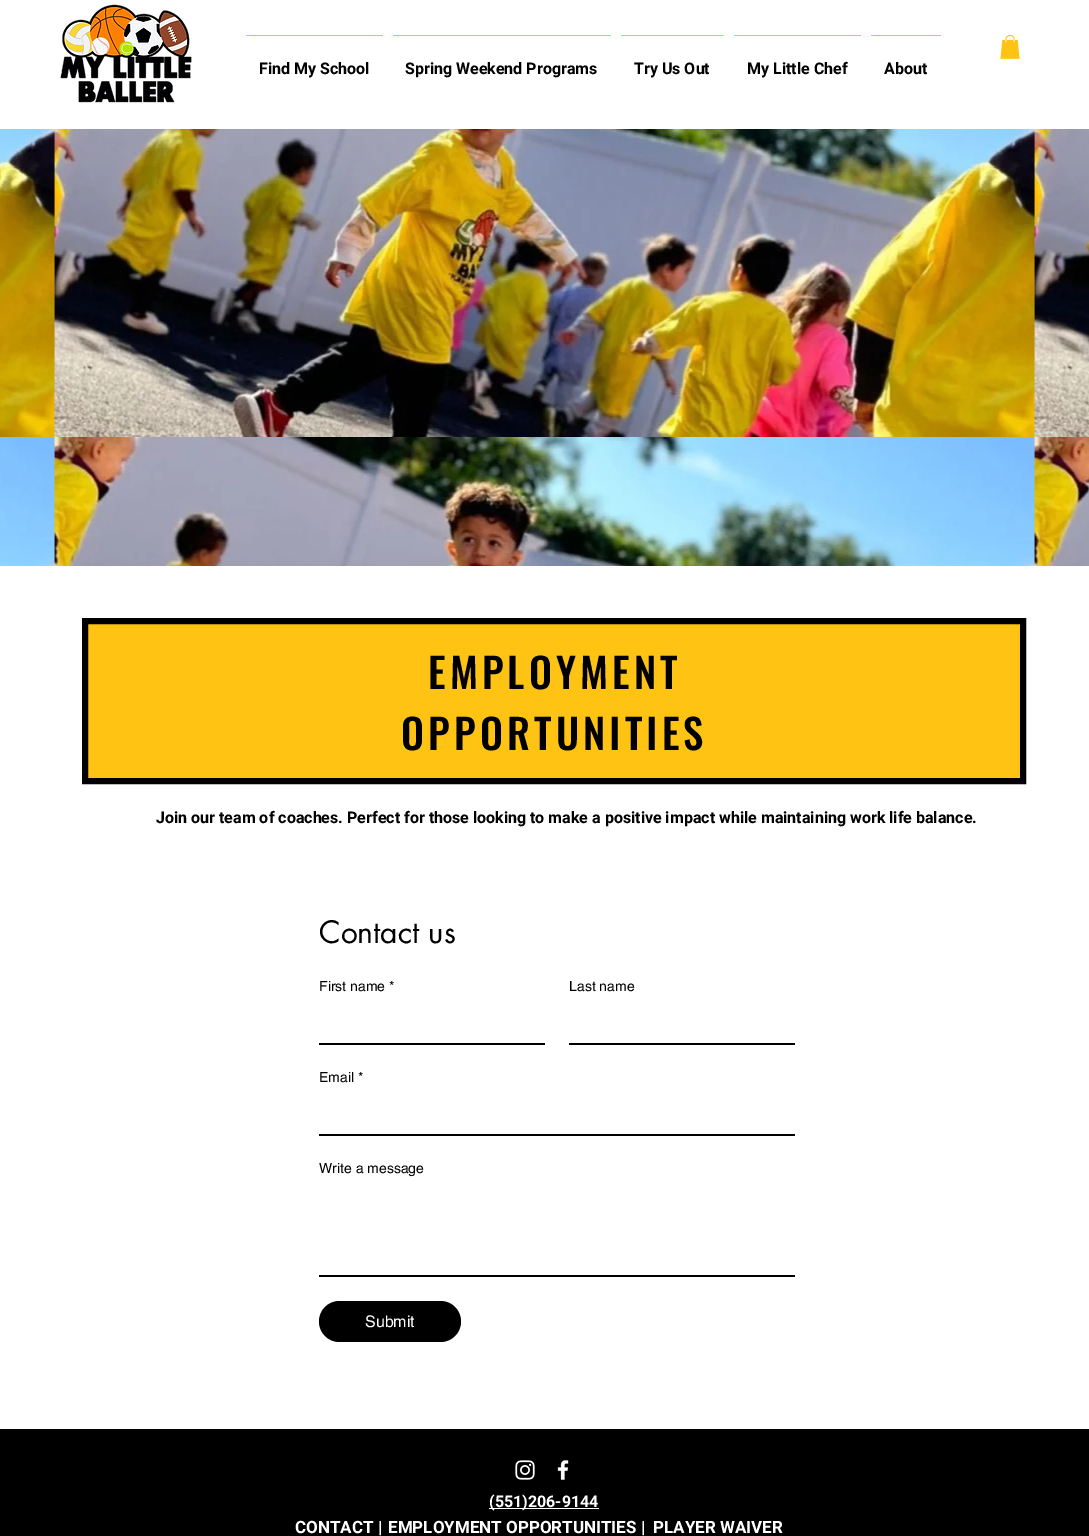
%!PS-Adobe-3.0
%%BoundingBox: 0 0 1089 1536
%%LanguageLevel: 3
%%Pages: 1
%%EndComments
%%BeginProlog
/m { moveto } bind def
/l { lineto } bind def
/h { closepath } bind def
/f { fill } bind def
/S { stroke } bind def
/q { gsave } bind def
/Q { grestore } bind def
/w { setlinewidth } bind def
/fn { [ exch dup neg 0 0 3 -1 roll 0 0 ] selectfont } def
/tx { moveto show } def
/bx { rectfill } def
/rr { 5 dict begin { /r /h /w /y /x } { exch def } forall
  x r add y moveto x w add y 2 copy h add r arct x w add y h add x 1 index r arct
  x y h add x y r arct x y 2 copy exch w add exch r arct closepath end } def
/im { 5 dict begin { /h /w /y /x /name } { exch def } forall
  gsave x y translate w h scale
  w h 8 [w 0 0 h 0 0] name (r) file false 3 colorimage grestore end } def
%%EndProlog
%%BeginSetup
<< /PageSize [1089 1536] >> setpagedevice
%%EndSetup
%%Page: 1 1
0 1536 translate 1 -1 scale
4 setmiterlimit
1 setgray
0 0 1089 1536 bx
(image0.raw) 60 4 132 99 im
(image1.raw) 1000 35 20 24 im
1 0.765 0.078 setrgbcolor
246 35 137 1 bx
/Roboto-Bold 16 fn
0 setgray
(Find My School) 259 74 tx
1 0.765 0.078 setrgbcolor
393 35 218 1 bx
0 setgray
(Spring Weekend Programs) 405 74 tx
1 0.765 0.078 setrgbcolor
621 35 103 1 bx
0 setgray
(Try Us Out) 634 74 tx
1 0.765 0.078 setrgbcolor
734 35 127 1 bx
0 setgray
(My Little Chef) 747 74 tx
1 0.765 0.078 setrgbcolor
871 35 70 1 bx
0 setgray
(About) 884 74 tx
(image2.raw) 0 129 1089 437 im
1 0.765 0.078 setrgbcolor
85 621 m 1023 621 l 1023 781 l 85 781 l h q f Q
0 setgray
6 w
S
/Oswald-Medium 41 fn
428 689 m 4.1 0 (EMPLOYMENT) ashow
401 750 m 4.1 0 (OPPORTUNITIES) ashow
/Roboto-Bold 16 fn
(Join our team of coaches. Perfect for those looking to make a positive impact while maintaining work life balance.) 156 823 tx
/futura-Regular 30 fn
(Contact us) 319 943 tx
/helvetica-Regular 14 fn
(First name *) 319 991 tx
(Last name) 569 991 tx
319 1043 226 2 bx
569 1043 226 2 bx
(Email *) 319 1082 tx
319 1134 476 2 bx
(Write a message) 319 1173 tx
319 1275 476 2 bx
319 1301 142 41 20.5 rr f
/helvetica-Regular 16 fn
1 setgray
(Submit) 365 1327 tx
0 setgray
0 1429 1089 107 bx
(image3.raw) 515 1460 20 20 im
(image4.raw) 557 1460 12 20 im
1 setgray
489 1508 110 1 bx
/Roboto-Bold 16 fn
(\(551\)206-9144) 489 1507 tx
/Roboto-Bold 17 fn
(CONTACT |) 295 1533 tx
(EMPLOYMENT OPPORTUNITIES |) 388 1533 tx
(PLAYER WAIVER) 653 1533 tx
showpage
%%EOF
